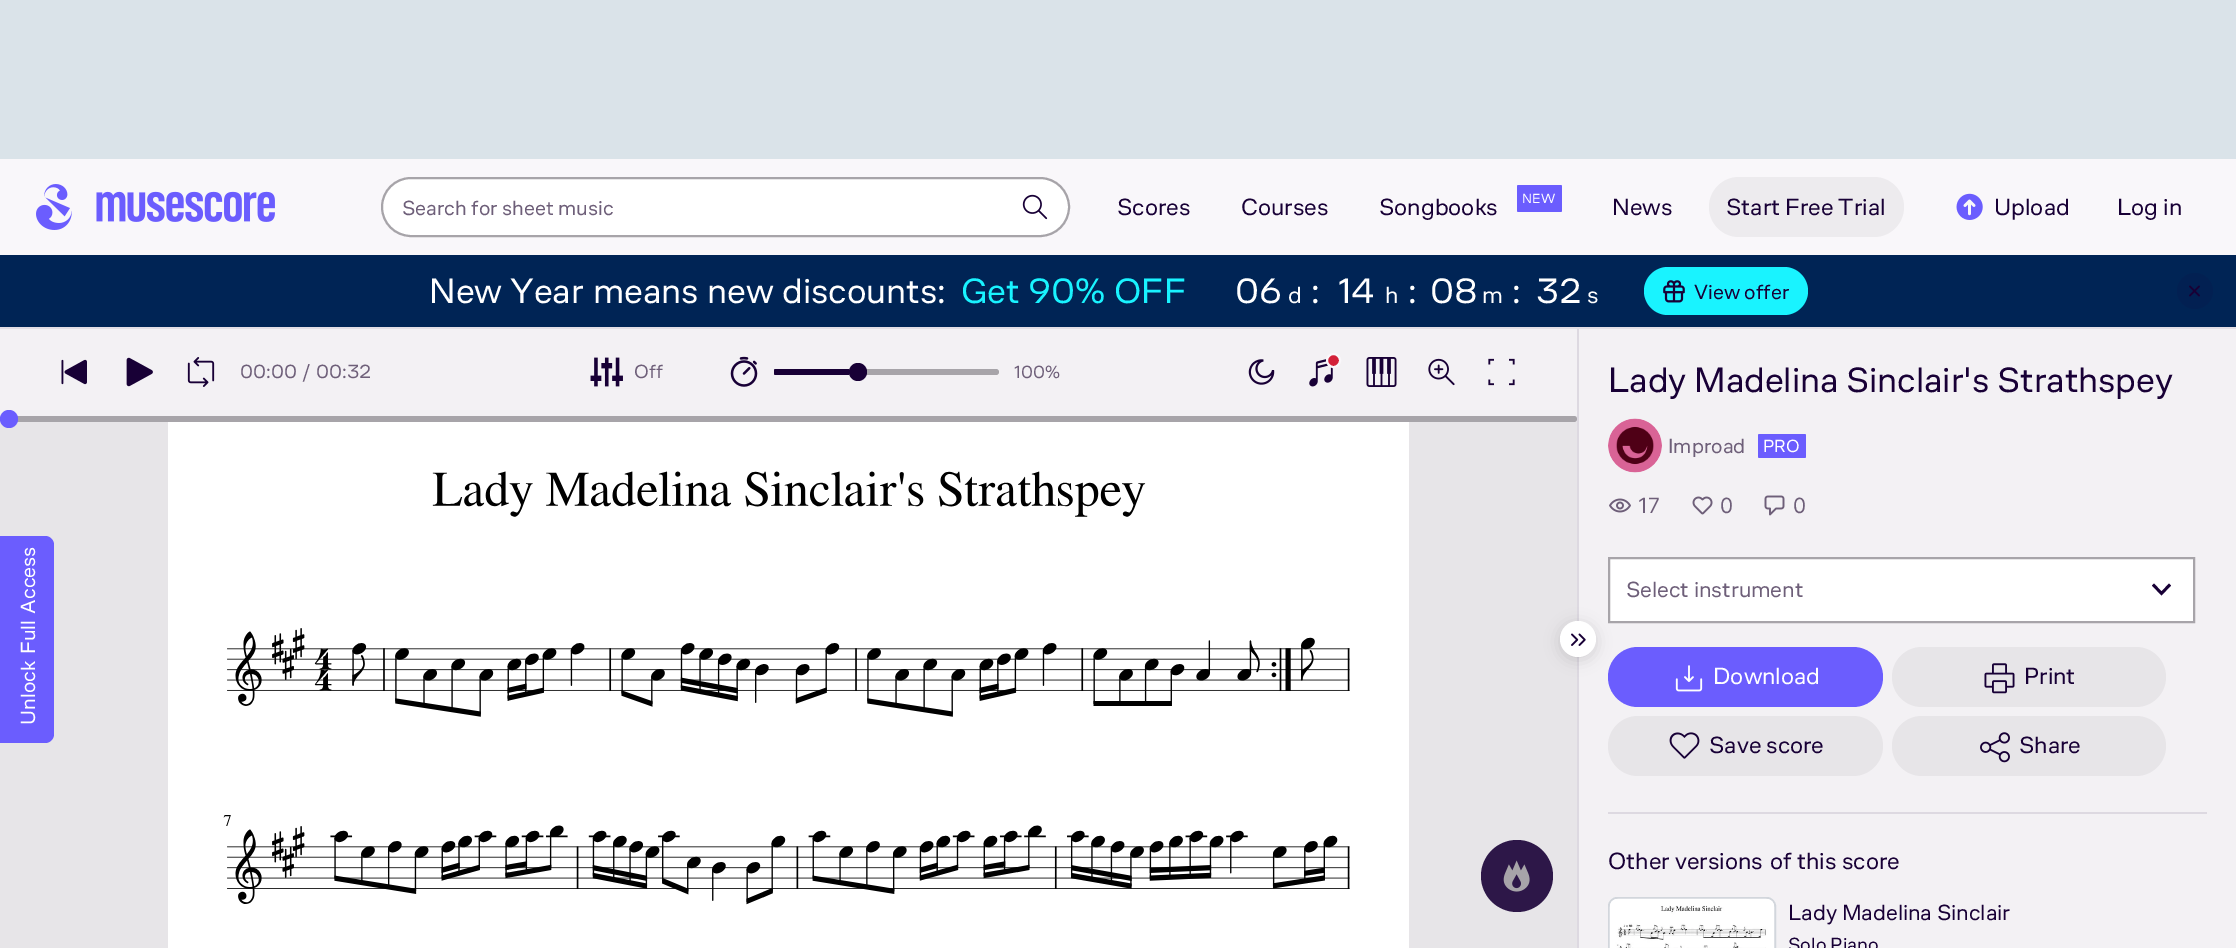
%!PS-Adobe-3.0
%%BoundingBox: 0 0 2236 948
%%LanguageLevel: 3
%%Pages: 1
%%EndComments
%%BeginProlog
/m { moveto } bind def
/l { lineto } bind def
/c { curveto } bind def
/h { closepath } bind def
/f { fill } bind def
/S { stroke } bind def
/q { gsave } bind def
/Q { grestore } bind def
/w { setlinewidth } bind def
/fn { [ exch dup neg 0 0 3 -1 roll 0 0 ] selectfont } def
/tx { moveto show } def
/bx { rectfill } def
/al { dup .setfillconstantalpha .setstrokeconstantalpha } def
/ci { newpath 0 360 arc closepath } def
/rr { 5 dict begin { /r /h /w /y /x } { exch def } forall
  x r add y moveto x w add y 2 copy h add r arct x w add y h add x 1 index r arct
  x y h add x y r arct x y 2 copy exch w add exch r arct closepath end } def
/sh { 12 dict begin { /a /b /q /h /w /y /x } { exch def } forall gsave /was 0 def
  9 -2 -9 { dup b mul 4 div /e exch def 1 sub .425 mul 2.718 exch exp 1 add a .99 .min exch div /now exch def
    1 1 now sub 1 was sub div sub al /was now def
    w h .min e 2 mul add 0 gt { x e sub y e sub w e 2 mul add h e 2 mul add
      q e add b .6 mul add w h .min 2 div e add .min 0 .max rr fill } if } for grestore end } def
/im { 5 dict begin { /h /w /y /x /name } { exch def } forall
  gsave x y translate w h scale
  w h 8 [w 0 0 h 0 0] name (r) file false 3 colorimage grestore end } def
%%EndProlog
%%BeginSetup
<< /PageSize [2236 948] /PageUsesTransparency true >> setpagedevice
%%EndSetup
%%Page: 1 1
0 .pushpdf14devicefilter
0 948 translate 1 -1 scale
4 setmiterlimit
0.976 0.969 0.98 setrgbcolor
0 0 2236 948 bx
0.886 0.871 0.902 setrgbcolor
0 327 2236 2 bx
0.855 0.89 0.914 setrgbcolor
0 0 2236 159 bx
(image0.raw) 36 184 239 46 im
1 setgray
382 178 687 58 29 rr q f Q
0.655 0.643 0.663 setrgbcolor
2 w
S
/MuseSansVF-Regular 21 fn
0.431 0.373 0.475 setrgbcolor
(Search for sheet music) 402 215 tx
(image1.raw) 1022 194 26 26 im
/MuseSansVF-Regular 24 fn
0.094 0 0.212 setrgbcolor
(Scores) 1117 215 tx
(Courses) 1241 215 tx
(Songbooks) 1379 215 tx
0.42 0.365 0.996 setrgbcolor
1517 185 45 27 1.5 rr f
/MuseSansVF-Regular 13.5 fn
1 setgray
(NEW) 1522 203 tx
/MuseSansVF-Regular 24 fn
0.094 0 0.212 setrgbcolor
(News) 1612 215 tx
0.929 0.922 0.933 setrgbcolor
1709 177 195 60 30 rr f
0.094 0 0.212 setrgbcolor
(Start Free Trial) 1726 215 tx
(image2.raw) 1956 193 27 27 im
(Upload) 1994 215 tx
(Log in) 2117 215 tx
0 0.141 0.333 setrgbcolor
0 255 2236 72 bx
/MuseSansVF-Regular 36 fn
1 setgray
(New) 429 303 tx
(Year) 510 303 tx
(means) 593 303 tx
(new) 707 303 tx
(discounts:) 782 303 tx
0.098 0.953 1 setrgbcolor
(Get) 961 303 tx
(90%) 1028 303 tx
(OFF) 1114 303 tx
1 setgray
(06) 1235 303 tx
/MuseSansVF-Regular 24 fn
(d) 1288 303 tx
/MuseSansVF-Regular 36 fn
(:) 1311 303 tx
(14) 1338 303 tx
/MuseSansVF-Regular 24 fn
(h) 1385 303 tx
/MuseSansVF-Regular 36 fn
(:) 1408 303 tx
(08) 1430 303 tx
/MuseSansVF-Regular 24 fn
(m) 1482 303 tx
/MuseSansVF-Regular 36 fn
(:) 1512 303 tx
(32) 1536 303 tx
/MuseSansVF-Regular 24 fn
(s) 1587 303 tx
0.098 0.953 1 setrgbcolor
1644 267 164 48 24 rr f
(image3.raw) 1663 280 22 23 im
/MuseSansVF-Regular 21 fn
0.094 0 0.212 setrgbcolor
(View offer) 1694 299 tx
0.008 0.125 0.322 setrgbcolor
2195 291 18 ci f
(image4.raw) 2189 285 11 12 im
0.906 0.898 0.91 setrgbcolor
0 416 1577 532 bx
0.655 0.643 0.663 setrgbcolor
0 416 1577 6 3 rr f
0.953 0.945 0.957 setrgbcolor
0 329 1577 87 bx
0.42 0.365 0.996 setrgbcolor
9 419 9 ci f
(image5.raw) 61 359 26 26 im
(image6.raw) 126 357 27 30 im
(image7.raw) 187 357 28 30 im
/MuseSansVF-Regular 19.5 fn
0.431 0.373 0.475 setrgbcolor
(00:00 / 00:32) 240 378 tx
(image8.raw) 590 357 33 30 im
(Off) 634 378 tx
(image9.raw) 730 356 28 31 im
0.655 0.643 0.663 setrgbcolor
774 369 225 6 3 rr f
0.094 0 0.212 setrgbcolor
775.5 369 m 849 369 l 849 375 l 775.5 375 l 774.5 375 774 374.5 774 373.5 c 774 370.5 l 774 369.5 774.5 369 775.5 369 c h f
858 372 9 ci f
/MuseSansVF-Regular 18 fn
0.431 0.373 0.475 setrgbcolor
(100%) 1014 378 tx
(image10.raw) 1248 359 27 26 im
(image11.raw) 1309 359 24 28 im
0.827 0.129 0.224 setrgbcolor
1333.5 360.5 6.5 ci q f Q
0.976 0.969 0.98 setrgbcolor
S
(image12.raw) 1366 357 31 30 im
(image13.raw) 1428 358 27 28 im
(image14.raw) 1488 358 27 28 im
0.42 0.365 0.996 setrgbcolor
0 536 m 45 536 l 50 536 54 540 54 545 c 54 734 l 54 739 50 743 45 743 c 0 743 l h f
/MuseSansVF-Regular 21 fn
1 setgray
q 35 725 translate -90 rotate 0 0 m 2 0 32 (Unlock Full Access) widthshow Q
168 422 1241 526 bx
(image15.raw) 223 471 1127 434 im
0.176 0.09 0.282 setrgbcolor
1517 876 36 ci f
(image16.raw) 1503 860 27 32 im
0.953 0.945 0.957 setrgbcolor
1579 329 657 619 bx
0.867 0.851 0.882 setrgbcolor
1577 329 2 619 bx
1 setgray
1609 558 m 2194 558 l 2194 622 l 1609 622 l h q f Q
0.655 0.643 0.663 setrgbcolor
S
0.42 0.365 0.996 setrgbcolor
1608 647 275 60 30 rr f
0 setgray
1560 624 36 36 18 7.5 0.14 sh
1 setgray
1578 639 18 ci f
(image17.raw) 1571 633 15 13 im
/MuseSansVF-Regular 36 fn
0.094 0 0.212 setrgbcolor
(Lady Madelina Sinclair's Strathspey) 1608 392 tx
(image18.raw) 1608 418 54 55 im
/MuseSansVF-Regular 21 fn
0.431 0.373 0.475 setrgbcolor
(Improad) 1668 453 tx
0.42 0.365 0.996 setrgbcolor
1758 434 48 24 1.5 rr f
/MuseSansVF-Regular 18 fn
1 setgray
(PRO) 1763 452 tx
(image19.raw) 1609 498 22 15 im
/Inter-Regular 21 fn
0.431 0.373 0.475 setrgbcolor
(17) 1638 513 tx
(image20.raw) 1692 496 21 19 im
(0) 1720 513 tx
(image21.raw) 1764 495 21 21 im
(0) 1793 513 tx
/MuseSansVF-Regular 22.5 fn
(Select instrument) 1626 597 tx
0.094 0 0.212 setrgbcolor
2171 585.5 m 2161.5 595.5 l 2152 585.5 l 2154 583.5 l 2161.5 591.5 l 2169 583.5 l h eofill
(image22.raw) 1675 665 28 27 im
/MuseSansVF-Regular 24 fn
1 setgray
(Download) 1713 684 tx
0.906 0.898 0.91 setrgbcolor
1892 647 274 60 30 rr f
(image23.raw) 1984 663 31 31 im
0.094 0 0.212 setrgbcolor
(Print) 2024 684 tx
0.906 0.898 0.91 setrgbcolor
1608 716 275 60 30 rr f
(image24.raw) 1669 732 31 27 im
0.094 0 0.212 setrgbcolor
(Save score) 1709 753 tx
0.906 0.898 0.91 setrgbcolor
1892 716 274 60 30 rr f
(image25.raw) 1980 732 30 31 im
0.094 0 0.212 setrgbcolor
(Share) 2019 753 tx
0.867 0.851 0.882 setrgbcolor
1608 812 599 2 bx
0.094 0 0.212 setrgbcolor
(Other) 1608 869 tx
(versions) 1675 869 tx
(of this) 1770 869 tx
(score) 1842 869 tx
1 setgray
1617 897 m 1767 897 l 1772 897 1776 901 1776 906 c 1776 948 l 1608 948 l 1608 906 l 1608 901 1612 897 1617 897 c h f
0.824 0.839 0.863 setrgbcolor
1609 898 166 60 8 rr S
(image26.raw) 1609 898 166 50 im
/MuseSansVF-Regular 22.5 fn
0.094 0 0.212 setrgbcolor
(Lady Madelina Sinclair) 1788 920 tx
/MuseSansVF-Regular 19.5 fn
(Solo Piano) 1788 951 tx
.poppdf14devicefilter showpage
%%EOF
